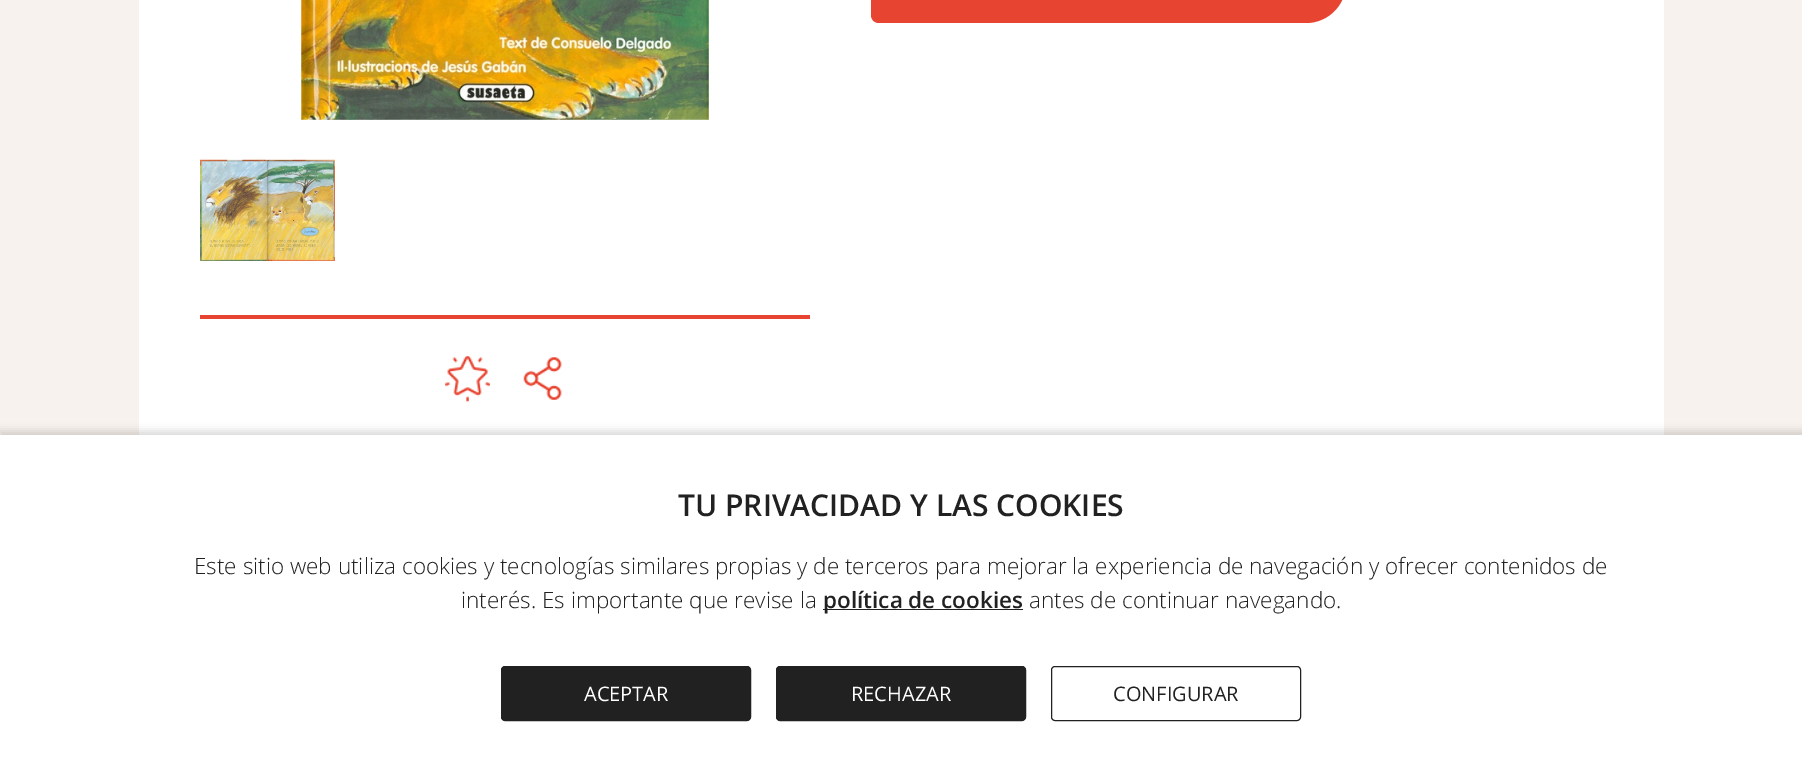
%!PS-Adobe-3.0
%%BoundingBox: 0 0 1802 771
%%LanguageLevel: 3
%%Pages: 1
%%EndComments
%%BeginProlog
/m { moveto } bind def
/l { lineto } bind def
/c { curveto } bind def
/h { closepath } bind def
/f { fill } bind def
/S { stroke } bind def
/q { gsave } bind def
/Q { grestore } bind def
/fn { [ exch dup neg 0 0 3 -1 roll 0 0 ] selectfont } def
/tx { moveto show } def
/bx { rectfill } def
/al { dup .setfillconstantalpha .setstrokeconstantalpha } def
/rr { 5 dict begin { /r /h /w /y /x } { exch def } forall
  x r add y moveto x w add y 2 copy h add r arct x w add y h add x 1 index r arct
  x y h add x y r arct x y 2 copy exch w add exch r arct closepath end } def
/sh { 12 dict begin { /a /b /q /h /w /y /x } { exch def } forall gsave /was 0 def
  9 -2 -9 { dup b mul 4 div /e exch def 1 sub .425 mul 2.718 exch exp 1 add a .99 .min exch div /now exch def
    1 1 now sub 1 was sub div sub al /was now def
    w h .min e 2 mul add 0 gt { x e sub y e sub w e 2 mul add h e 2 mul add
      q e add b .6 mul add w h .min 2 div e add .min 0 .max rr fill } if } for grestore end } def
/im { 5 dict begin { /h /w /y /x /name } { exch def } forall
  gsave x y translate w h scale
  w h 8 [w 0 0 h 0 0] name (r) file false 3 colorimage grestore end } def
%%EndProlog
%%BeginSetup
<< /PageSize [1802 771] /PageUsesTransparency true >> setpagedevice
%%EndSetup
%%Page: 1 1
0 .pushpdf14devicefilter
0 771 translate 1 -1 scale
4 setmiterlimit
0.973 0.949 0.933 setrgbcolor
0 0 1802 771 bx
1 setgray
139 0 1525 435 bx
0.906 0.271 0.192 setrgbcolor
879 -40 m 1338 -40 l 1342.5 -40 1346 -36.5 1346 -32 c 1346 -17 l 1346 5 1328 23 1306 23 c 879 23 l 874.5 23 871 19.5 871 15 c 871 -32 l 871 -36.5 874.5 -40 879 -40 c h f
(image0.raw) 301 0 408 120 im
(image1.raw) 200 159 135 102 im
200 315 610 4 bx
(image2.raw) 445 356 45 47 im
(image3.raw) 523 357 39 43 im
0 setgray
0 431 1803 337 0 4 0.15 sh
1 setgray
0 435 1802 336 bx
/OpenSans-SemiBold 30 fn
0.129 setgray
(TU PRIVACIDAD Y LAS COOKIES) 678 516 tx
/OpenSans-Light 22.5 fn
(Este sitio web utiliza cookies y tecnologías similares propias y de terceros para mejorar la experiencia de navegación y ofrecer contenidos de) 194 574 tx
(interés. Es importante que revise la) 461 608 tx
823 609 200 1 bx
/OpenSans-SemiBold 22.5 fn
(política de cookies) 823 608 tx
/OpenSans-Light 22.5 fn
(antes de continuar navegando.) 1029 608 tx
501.5 666.5 249 54 3.5 rr q f Q
S
/OpenSans-Regular 20 fn
1 setgray
(ACEPTAR) 584 701 tx
0.129 setgray
776.5 666.5 249 54 3.5 rr q f Q
S
1 setgray
(RECHAZAR) 851 701 tx
0.129 setgray
1051.5 666.5 249 54 3.5 rr S
(CONFIGURAR) 1113 701 tx
.poppdf14devicefilter showpage
%%EOF
